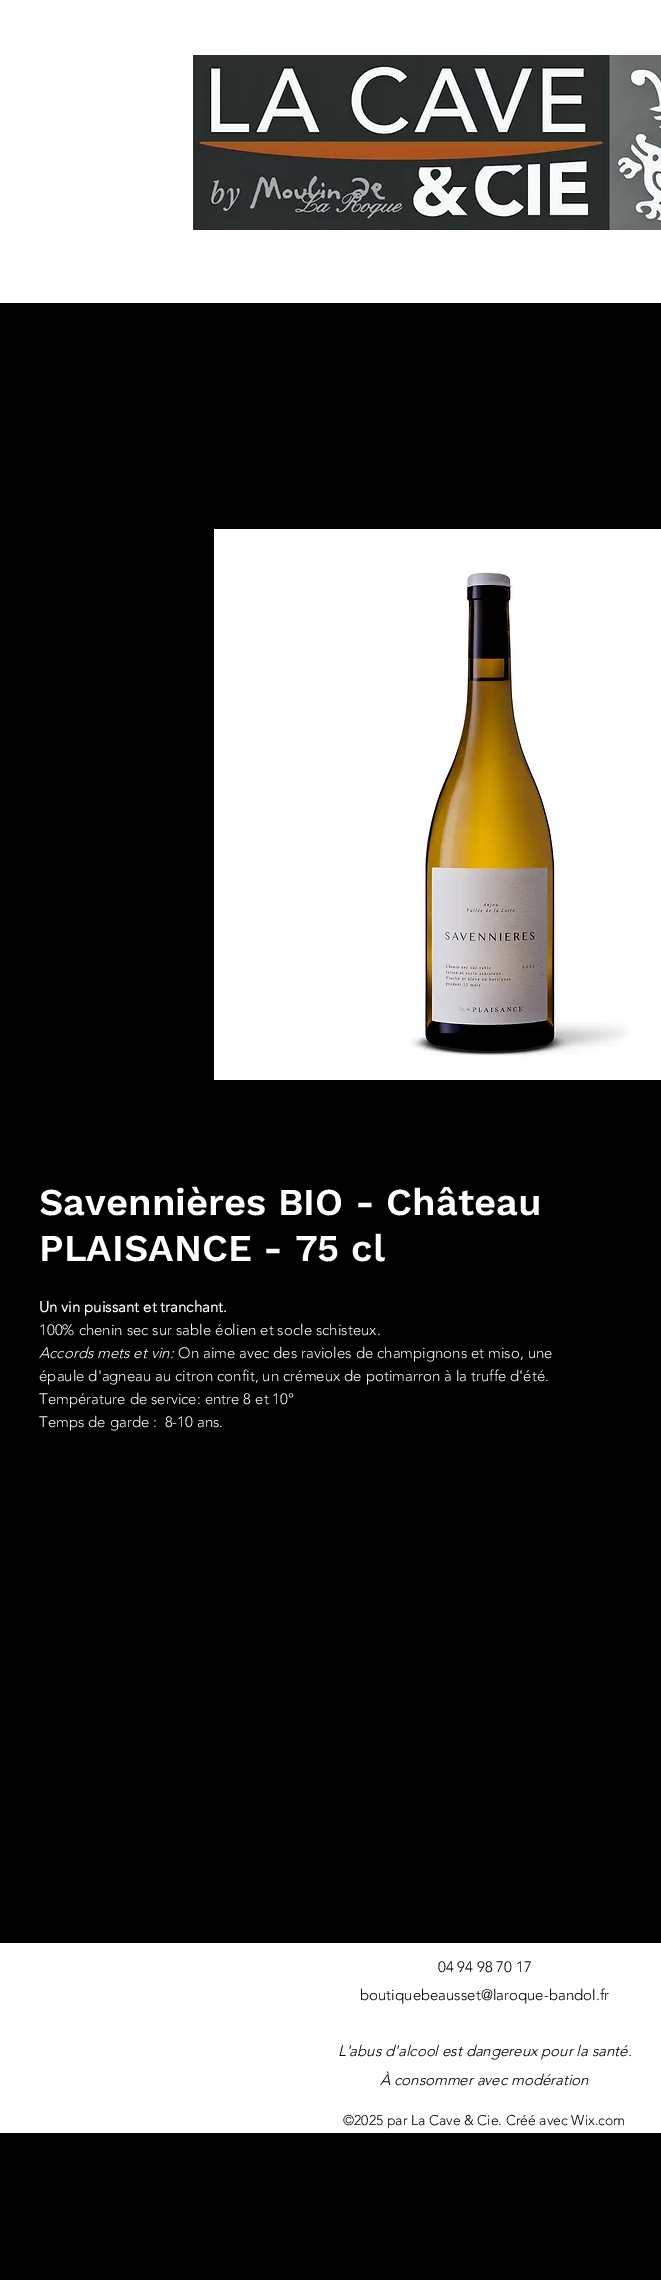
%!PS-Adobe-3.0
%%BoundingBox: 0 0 661 2280
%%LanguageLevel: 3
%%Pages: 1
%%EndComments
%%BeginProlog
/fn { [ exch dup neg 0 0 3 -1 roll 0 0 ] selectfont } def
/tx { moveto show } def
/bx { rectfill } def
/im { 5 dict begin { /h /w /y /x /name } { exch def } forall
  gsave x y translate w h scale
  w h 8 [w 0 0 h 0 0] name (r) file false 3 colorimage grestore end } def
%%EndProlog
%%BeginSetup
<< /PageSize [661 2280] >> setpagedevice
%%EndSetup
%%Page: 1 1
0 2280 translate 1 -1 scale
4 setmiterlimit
0 setgray
0 0 661 2280 bx
1 setgray
0 0 661 303 bx
(image0.raw) 193 55 468 175 im
(image1.raw) 214 529 447 551 im
/WorkSans-SemiBold 38 fn
(Savennières BIO - Château) 39 1215 tx
(PLAISANCE - 75 cl) 39 1261 tx
/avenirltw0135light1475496-Bold 15 fn
(Un vin puissant et tranchant.) 39 1312 tx
/avenirltw0135light1475496-Light 15 fn
(100% chenin sec sur sable éolien et socle schisteux.) 39 1335 tx
/avenirltw0135light1475496-LightItalic 15 fn
(Accords mets et vin:) 39 1358 tx
/avenirltw0135light1475496-Light 15 fn
(On aime avec des ravioles de champignons et miso, une) 178 1358 tx
(épaule d'agneau au citron confit, un crémeux de potimarron à la truffe d'été.) 39 1381 tx
(Température de service: entre 8 et 10°) 39 1404 tx
(Temps de garde :  8-10 ans.) 39 1427 tx
0 1943 661 190 bx
0 setgray
(04 94 98 70 17) 438 1972 tx
(boutiquebeausset@laroque-bandol.fr) 360 2000 tx
/avenirltw0135light1475496-LightItalic 15 fn
(L'abus d'alcool est dangereux pour la santé.) 338 2056 tx
(À consommer avec modération) 380 2085 tx
/avenirltw0135light1475496-Light 14 fn
(©2025 par La Cave & Cie. Créé avec Wix.com) 343 2125 tx
showpage
%%EOF
